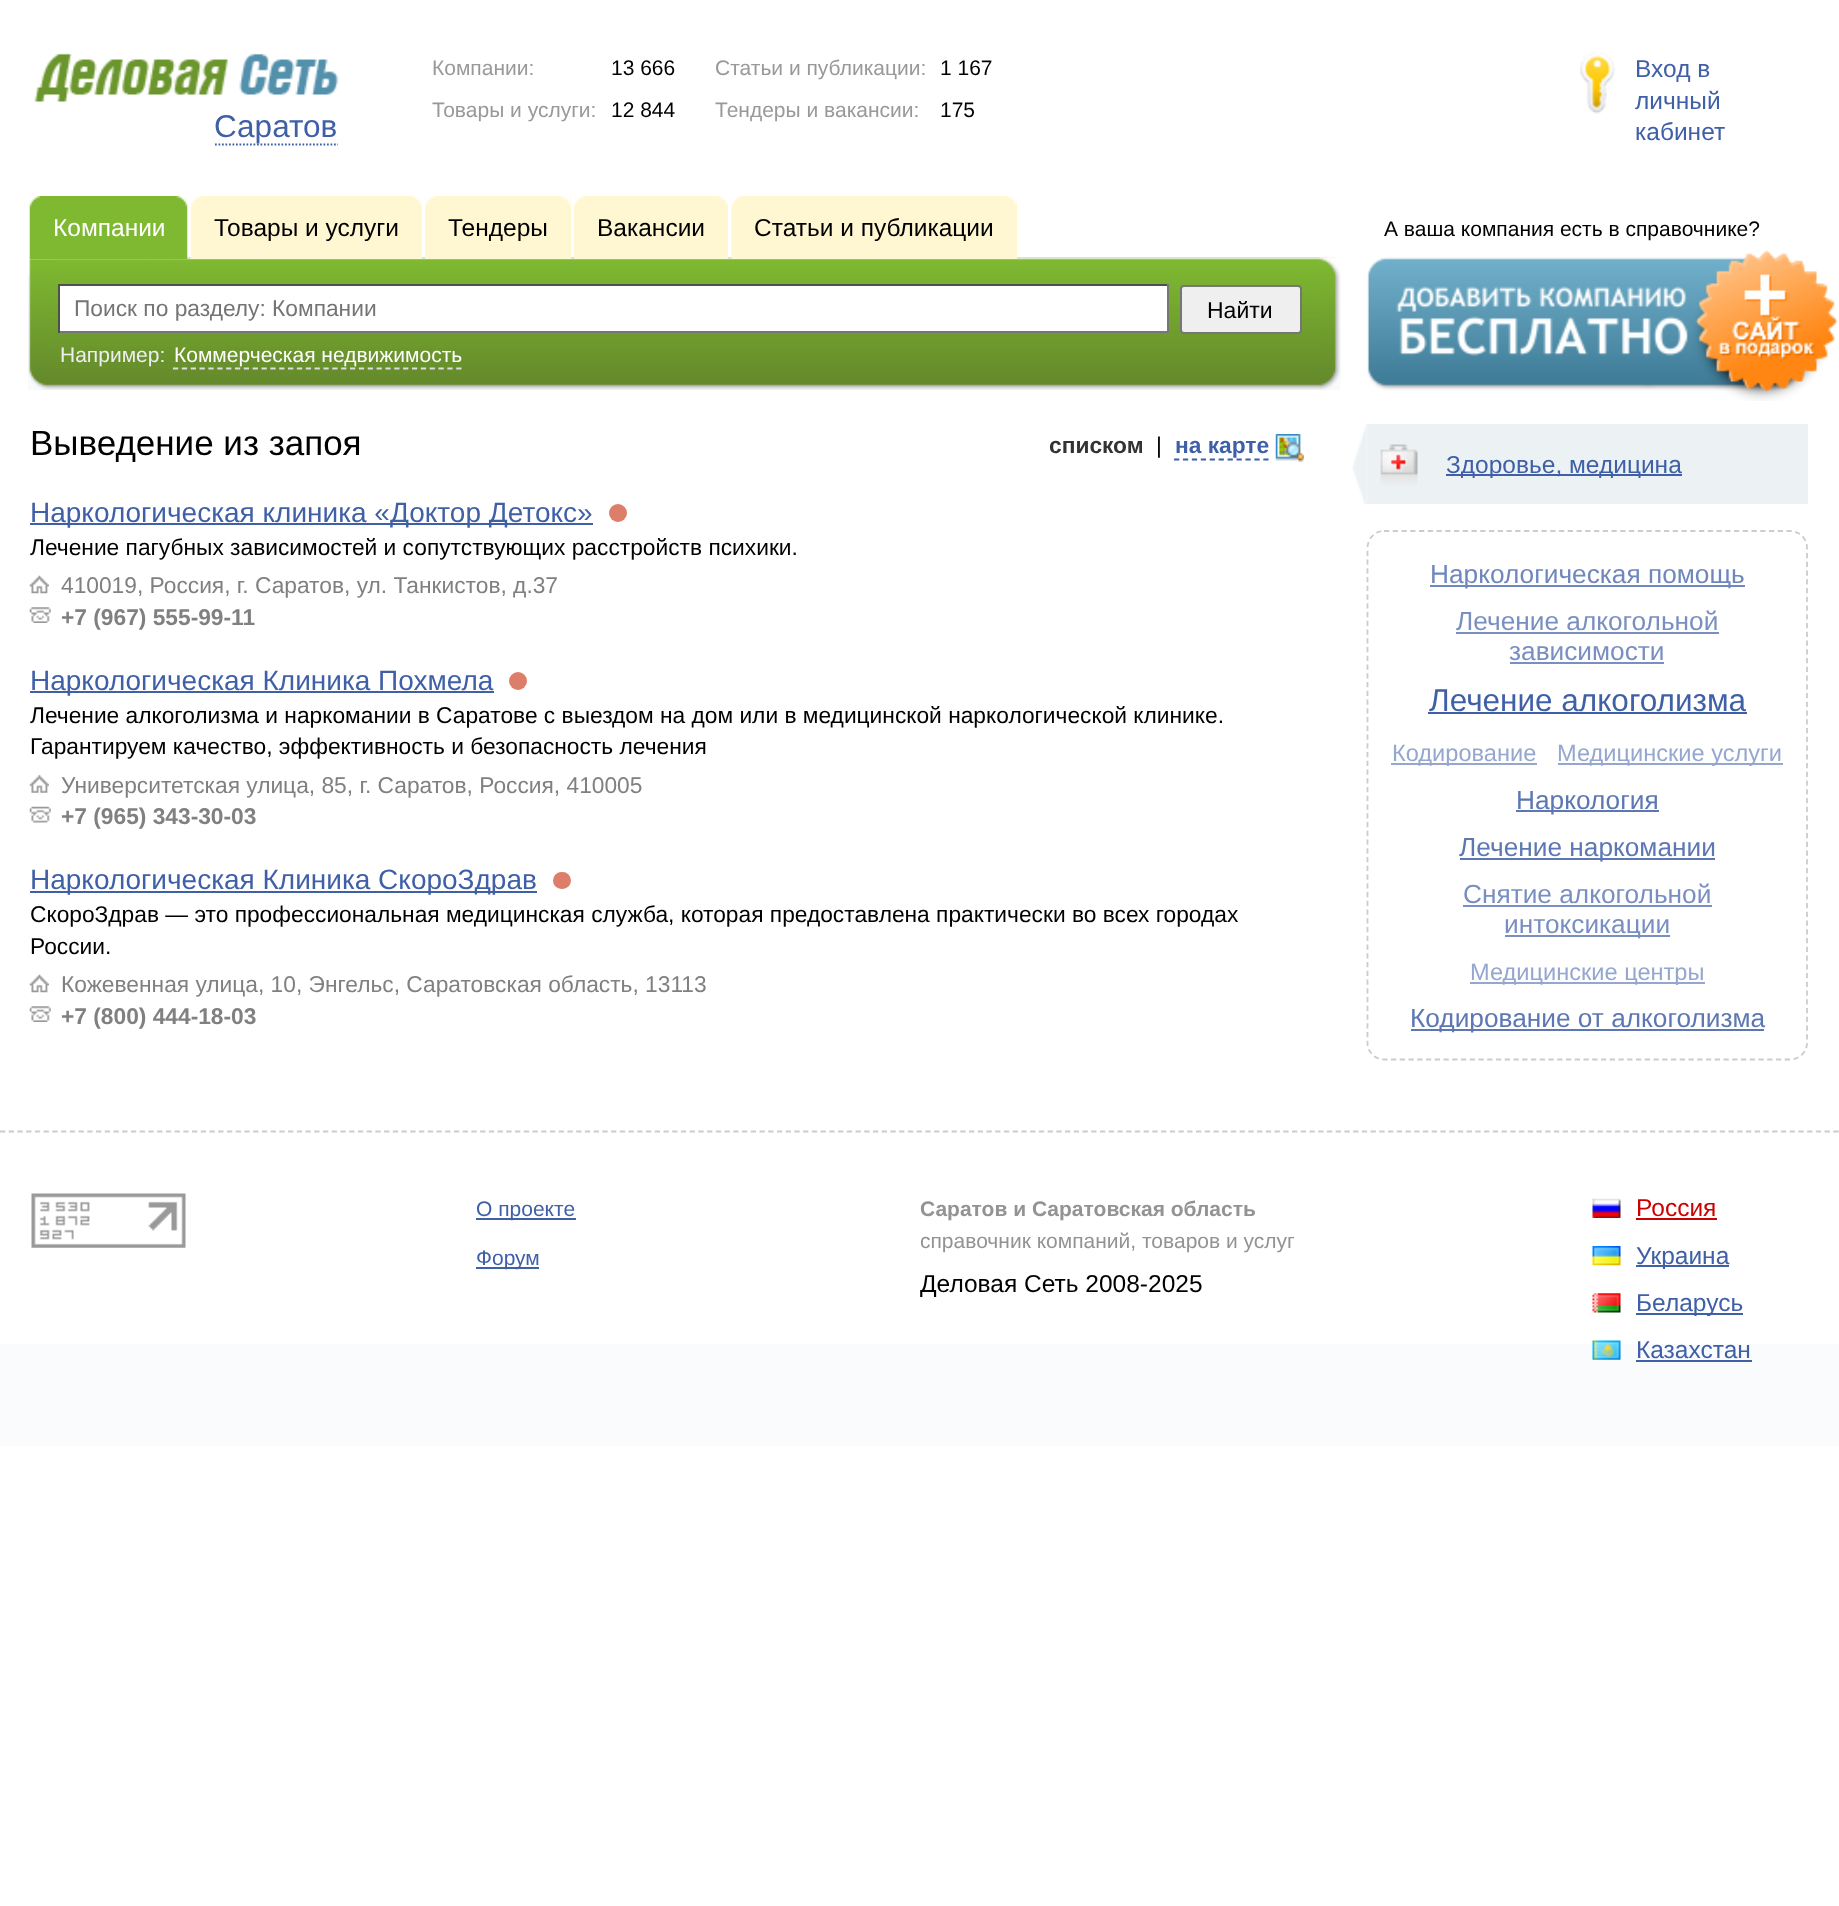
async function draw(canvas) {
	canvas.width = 1839;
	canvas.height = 1906;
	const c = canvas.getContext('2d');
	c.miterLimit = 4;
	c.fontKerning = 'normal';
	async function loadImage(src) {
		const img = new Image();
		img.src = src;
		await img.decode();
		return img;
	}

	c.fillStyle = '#fff';
	c.fillRect(0, 0, 1839, 1906);
	c.drawImage(await loadImage('img1.png'), 34, 53, 305, 49);
	c.beginPath();
	c.moveTo(215, 144.5);
	c.lineTo(338, 144.5);
	c.strokeStyle = '#3f5fa6';
	c.lineWidth = 1.8;
	c.setLineDash([1.75, 1.75]);
	c.stroke();
	c.font = '31.5px Liberation Sans';
	c.fillStyle = '#3f5fa7';
	c.fillText('Саратов', 214, 137);
	c.font = '21px Liberation Sans';
	c.fillStyle = '#999';
	c.fillText('Компании:', 432, 75);
	c.fillStyle = '#000';
	c.fillText('13 666', 611, 75);
	c.fillStyle = '#999';
	c.fillText('Товары и услуги:', 432, 117);
	c.fillStyle = '#000';
	c.fillText('12 844', 611, 117);
	c.fillStyle = '#999';
	c.fillText('Статьи и публикации:', 715, 75);
	c.fillStyle = '#000';
	c.fillText('1 167', 940, 75);
	c.fillStyle = '#999';
	c.fillText('Тендеры и вакансии:', 715, 117);
	c.fillStyle = '#000';
	c.fillText('175', 940, 117);
	c.drawImage(await loadImage('img2.png'), 1580, 52, 35, 62);
	c.font = '24.5px Liberation Sans';
	c.fillStyle = '#3f5fa7';
	for (const [text, x, y] of [
		['Вход в', 1635, 77],
		['личный', 1635, 109],
		['кабинет', 1635, 140],
	]) {
		c.fillText(text, x, y);
	}
	c.drawImage(await loadImage('img13.png'), 29, 257, 1307, 133);
	c.drawImage(await loadImage('img14.png'), 28, 257, 21, 134);
	c.fillStyle = '#7eb931';
	c.fillRect(40, 196, 137, 63);
	c.drawImage(await loadImage('img3.png'), 176, 196, 12, 63);
	c.drawImage(await loadImage('img4.png'), 29, 196, 12, 63);
	c.fillStyle = '#fff';
	c.fillText('Компании', 53, 236);
	c.fillStyle = '#fff7d1';
	c.fillRect(201, 196, 221, 63);
	c.drawImage(await loadImage('img5.png'), 411, 196, 11, 10);
	c.drawImage(await loadImage('img6.png'), 190, 196, 11, 63);
	c.fillStyle = '#000';
	c.fillText('Товары и услуги', 214, 236);
	c.fillStyle = '#fff7d1';
	c.fillRect(425, 196, 146, 63);
	c.drawImage(await loadImage('img7.png'), 560, 196, 11, 10);
	c.drawImage(await loadImage('img8.png'), 425, 196, 11, 10);
	c.fillStyle = '#000';
	c.fillText('Тендеры', 448, 236);
	c.fillStyle = '#fff7d1';
	c.fillRect(574, 196, 154, 63);
	c.drawImage(await loadImage('img9.png'), 717, 196, 11, 11);
	c.drawImage(await loadImage('img10.png'), 574, 196, 11, 11);
	c.fillStyle = '#000';
	c.fillText('Вакансии', 597, 236);
	c.fillStyle = '#fff7d1';
	c.fillRect(742, 196, 275, 63);
	c.drawImage(await loadImage('img11.png'), 1006, 196, 11, 10);
	c.drawImage(await loadImage('img12.png'), 731, 196, 11, 63);
	c.fillStyle = '#000';
	c.fillText('Статьи и публикации', 754, 236);
	for (const [x, y, w, h, color] of [
		[60, 286, 1107, 45, '#fff'],
		[58, 284, 1111, 2, '#4f4f4f'],
		[1167, 284, 2, 49, '#767676'],
		[58, 331, 1111, 2, '#767676'],
		[58, 284, 2, 49, '#4f4f4f'],
	]) {
		c.fillStyle = color;
		c.fillRect(x, y, w, h);
	}
	c.font = '22.75px Liberation Sans';
	c.fillStyle = '#757575';
	c.fillText('Поиск по разделу: Компании', 74, 316);
	c.fillStyle = '#efefef';
	c.beginPath();
	c.roundRect(1181, 286, 120, 47, 3);
	c.fill();
	c.strokeStyle = '#767676';
	c.lineWidth = 2;
	c.setLineDash([]);
	c.stroke();
	c.font = '23px Liberation Sans';
	c.fillStyle = '#000';
	c.fillText('Найти', 1207, 318);
	c.drawImage(await loadImage('img15.png'), 1319, 257, 22, 134);
	c.font = '21px Liberation Sans';
	c.fillStyle = '#eee';
	c.fillText('Например:', 60, 362);
	c.fillStyle = '#fff';
	c.fillText('Коммерческая недвижимость', 174, 362);
	c.beginPath();
	c.moveTo(173, 368.5);
	c.lineTo(462, 368.5);
	c.strokeStyle = '#ddd';
	c.lineWidth = 1.8;
	c.setLineDash([5.25, 3.6]);
	c.stroke();
	c.fillStyle = '#000';
	c.fillText('А ваша компания есть в справочнике?', 1384, 236);
	c.drawImage(await loadImage('img16.png'), 1367, 250, 471, 151);
	c.font = '35px Liberation Sans';
	c.fillText('Выведение из запоя', 30, 455);
	c.font = 'bold 22.75px Liberation Sans';
	c.fillStyle = '#333';
	c.fillText('списком', 1049, 453);
	c.font = '22.75px Liberation Sans';
	c.fillStyle = '#000';
	c.fillText('|', 1156, 453);
	c.font = 'bold 22.75px Liberation Sans';
	c.fillStyle = '#3f5fa7';
	c.fillText('на карте', 1175, 453);
	c.beginPath();
	c.moveTo(1174, 459.5);
	c.lineTo(1269, 459.5);
	c.strokeStyle = '#3f5fa7';
	c.setLineDash([5.25, 3.68]);
	c.stroke();
	c.drawImage(await loadImage('img17.png'), 1275, 434, 29, 28);
	c.fillStyle = '#3f5fa6';
	c.fillRect(30, 523, 563, 2);
	c.font = '28px Liberation Sans';
	c.fillStyle = '#3f5fa7';
	c.fillText('Наркологическая клиника «Доктор Детокс»', 30, 522);
	c.fillStyle = '#dd7e6b';
	c.beginPath();
	c.arc(618, 513, 9, 0, 2 * Math.PI);
	c.fill();
	c.font = '22.75px Liberation Sans';
	c.fillStyle = '#000';
	c.fillText('Лечение пагубных зависимостей и сопутствующих расстройств психики.', 30, 555);
	c.drawImage(await loadImage('img18.png'), 29, 575, 20, 19);
	c.fillStyle = '#808080';
	c.fillText('410019, Россия, г. Саратов, ул. Танкистов, д.37', 61, 593);
	c.drawImage(await loadImage('img19.png'), 29, 607, 22, 16);
	c.font = 'bold 22.75px Liberation Sans';
	c.fillText('+7 (967) 555-99-11', 61, 625);
	c.fillStyle = '#3f5fa6';
	c.fillRect(30, 691, 464, 2);
	c.font = '28px Liberation Sans';
	c.fillStyle = '#3f5fa7';
	c.fillText('Наркологическая Клиника Похмела', 30, 690);
	c.fillStyle = '#dd7e6b';
	c.beginPath();
	c.arc(518, 681, 9, 0, 2 * Math.PI);
	c.fill();
	c.font = '22.75px Liberation Sans';
	c.fillStyle = '#000';
	c.fillText('Лечение алкоголизма и наркомании в Саратове с выездом на дом или в медицинской наркологической клинике.', 30, 723);
	c.fillText('Гарантируем качество, эффективность и безопасность лечения', 30, 754);
	c.drawImage(await loadImage('img20.png'), 29, 775, 20, 18);
	c.fillStyle = '#808080';
	c.fillText('Университетская улица, 85, г. Саратов, Россия, 410005', 61, 793);
	c.drawImage(await loadImage('img21.png'), 29, 806, 22, 17);
	c.font = 'bold 22.75px Liberation Sans';
	c.fillText('+7 (965) 343-30-03', 61, 824);
	c.fillStyle = '#3f5fa6';
	c.fillRect(30, 891, 507, 2);
	c.font = '28px Liberation Sans';
	c.fillStyle = '#3f5fa7';
	c.fillText('Наркологическая Клиника СкороЗдрав', 30, 889);
	c.fillStyle = '#dd7e6b';
	c.beginPath();
	c.roundRect(553, 872, 18, 17, 8.5);
	c.fill();
	c.font = '22.75px Liberation Sans';
	c.fillStyle = '#000';
	c.fillText('СкороЗдрав — это профессиональная медицинская служба, которая предоставлена практически во всех городах', 30, 922);
	c.fillText('России.', 30, 954);
	c.drawImage(await loadImage('img18.png'), 29, 974, 20, 19);
	c.fillStyle = '#808080';
	c.fillText('Кожевенная улица, 10, Энгельс, Саратовская область, 13113', 61, 992);
	c.drawImage(await loadImage('img19.png'), 29, 1006, 22, 16);
	c.font = 'bold 22.75px Liberation Sans';
	c.fillText('+7 (800) 444-18-03', 61, 1024);
	c.fillStyle = '#ecf2f4';
	c.fillRect(1367, 424, 441, 80);
	c.drawImage(await loadImage('img22.png'), 1352, 424, 15, 80);
	c.drawImage(await loadImage('img23.png'), 1380, 444, 38, 42);
	c.fillStyle = '#3f5fa6';
	c.fillRect(1446, 474, 236, 2);
	c.font = '24.5px Liberation Sans';
	c.fillStyle = '#3f5fa7';
	c.fillText('Здоровье, медицина', 1446, 473);
	c.beginPath();
	c.moveTo(1384, 531);
	c.lineTo(1790, 531);
	c.bezierCurveTo(1799.5, 531, 1807, 538.5, 1807, 548);
	c.lineTo(1807, 1043);
	c.bezierCurveTo(1807, 1052, 1799.5, 1059.5, 1790, 1059.5);
	c.lineTo(1384, 1059.5);
	c.bezierCurveTo(1375, 1059.5, 1367.5, 1052, 1367.5, 1043);
	c.lineTo(1367.5, 548);
	c.bezierCurveTo(1367.5, 538.5, 1375, 531, 1384, 531);
	c.closePath();
	c.strokeStyle = '#ccc';
	c.setLineDash([5.25, 3.5]);
	c.stroke();
	c.fillStyle = '#6f87bc';
	c.fillRect(1430, 585, 315, 2);
	c.font = '26.25px Liberation Sans';
	c.fillText('Наркологическая помощь', 1430, 583);
	c.fillStyle = '#798fc1';
	c.fillText('Лечение алкогольной', 1456, 630);
	c.fillRect(1456, 632, 263, 2);
	c.fillText('зависимости', 1509, 660);
	c.fillRect(1510, 662, 154, 2);
	c.font = '31.5px Liberation Sans';
	c.fillStyle = '#3f5fa7';
	c.fillText('Лечение алкоголизма', 1429, 711);
	c.fillStyle = '#3f5fa6';
	c.fillRect(1428, 712, 319, 2);
	c.fillStyle = '#95a7ce';
	c.fillRect(1391, 763, 146, 2);
	c.font = '23.6px Liberation Sans';
	c.fillText('Кодирование', 1392, 761);
	c.fillRect(1558, 763, 225, 2);
	c.fillText('Медицинские услуги', 1557, 761);
	c.fillStyle = '#5c77b3';
	c.fillRect(1516, 810, 143, 2);
	c.font = '26.25px Liberation Sans';
	c.fillText('Наркология', 1516, 809);
	c.fillRect(1460, 858, 255, 2);
	c.fillText('Лечение наркомании', 1459, 856);
	c.fillStyle = '#798fc1';
	c.fillText('Снятие алкогольной', 1463, 903);
	c.fillRect(1463, 905, 249, 2);
	c.fillRect(1505, 935, 165, 2);
	c.fillText('интоксикации', 1504, 933);
	c.fillStyle = '#95a7ce';
	c.fillRect(1470, 982, 235, 2);
	c.font = '23.6px Liberation Sans';
	c.fillText('Медицинские центры', 1470, 980);
	c.fillStyle = '#5c77b3';
	c.fillRect(1411, 1029, 353, 2);
	c.font = '26.25px Liberation Sans';
	c.fillText('Кодирование от алкоголизма', 1410, 1027);
	c.fillStyle = '#f9fbfc';
	c.fillRect(0, 1344, 1839, 102);
	c.beginPath();
	c.moveTo(0, 1131.5);
	c.lineTo(1839, 1131.5);
	c.setLineDash([5.25, 3.48]);
	c.stroke();
	c.drawImage(await loadImage('img24.png'), 31, 1193, 155, 55);
	c.fillStyle = '#3f5fa6';
	c.fillRect(476, 1218, 100, 2);
	c.font = '21px Liberation Sans';
	c.fillStyle = '#3f5fa7';
	c.fillText('О проекте', 476, 1216);
	c.fillStyle = '#3f5fa6';
	c.fillRect(476, 1267, 63, 2);
	c.fillStyle = '#3f5fa7';
	c.fillText('Форум', 476, 1265);
	c.font = 'bold 21px Liberation Sans';
	c.fillStyle = '#939393';
	c.fillText('Саратов и Саратовская область', 920, 1216);
	c.font = '21px Liberation Sans';
	c.fillText('справочник компаний, товаров и услуг', 920, 1248);
	c.font = '24.5px Liberation Sans';
	c.fillStyle = '#000';
	c.fillText('Деловая Сеть 2008-2025', 920, 1292);
	c.drawImage(await loadImage('img25.png'), 1592, 1198, 29, 20);
	c.fillStyle = '#c00';
	c.fillText('Россия', 1636, 1216);
	c.fillRect(1636, 1218, 81, 2);
	c.drawImage(await loadImage('img26.png'), 1592, 1246, 29, 20);
	c.fillStyle = '#3f5fa6';
	c.fillRect(1636, 1265, 93, 2);
	c.fillStyle = '#3f5fa7';
	c.fillText('Украина', 1636, 1264);
	c.drawImage(await loadImage('img27.png'), 1592, 1293, 29, 20);
	c.fillStyle = '#3f5fa6';
	c.fillRect(1636, 1313, 107, 2);
	c.fillStyle = '#3f5fa7';
	c.fillText('Беларусь', 1636, 1311);
	c.drawImage(await loadImage('img28.png'), 1592, 1340, 29, 20);
	c.fillText('Казахстан', 1636, 1358);
	c.fillStyle = '#3f5fa6';
	c.fillRect(1636, 1360, 116, 2);
}

draw(document.querySelector('canvas'));
